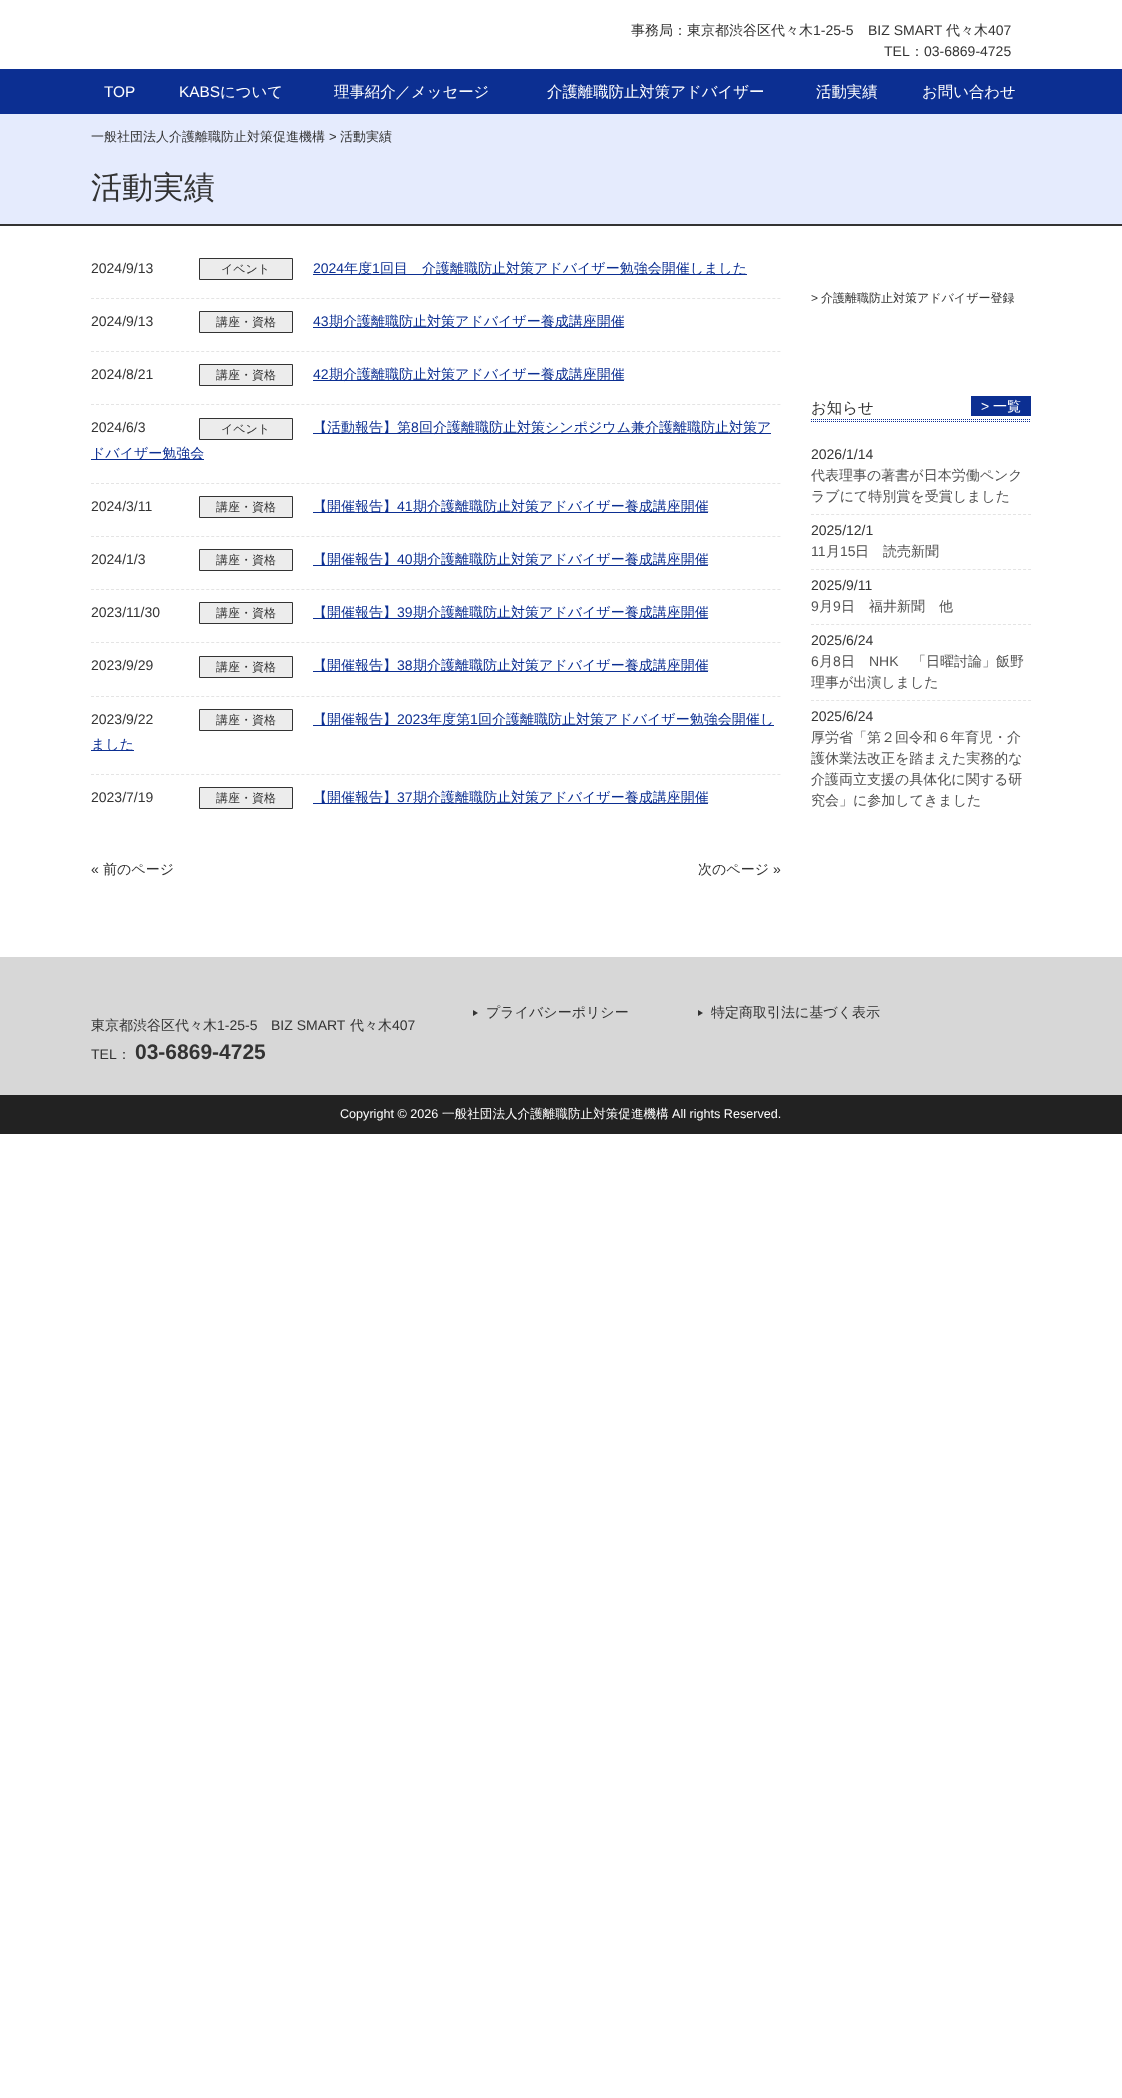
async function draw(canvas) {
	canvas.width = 1122;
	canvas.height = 2098;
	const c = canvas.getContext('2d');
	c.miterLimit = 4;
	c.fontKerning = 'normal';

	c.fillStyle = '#fff';
	c.fillRect(0, 0, 1122, 2098);
	c.font = '500 14px WenQuanYi Zen Hei';
	c.fillStyle = '#333';
	c.fillText('事務局：東京都渋谷区代々木', 631, 35);
	c.font = '14px Liberation Sans';
	c.fillText('1-25-5', 813, 35);
	c.fillText('BIZ SMART', 868, 35);
	c.font = '500 14px WenQuanYi Zen Hei';
	c.fillText('代々木', 946, 35);
	c.font = '14px Liberation Sans';
	c.fillText('407', 988, 35);
	c.fillText('TEL', 884, 56);
	c.font = '500 14px WenQuanYi Zen Hei';
	c.fillText('：', 910, 56);
	c.font = '14px Liberation Sans';
	c.fillText('03-6869-4725', 924, 56);
	c.fillStyle = '#0c2f92';
	c.fillRect(0, 69, 1122, 45);
	c.font = '15.4px Liberation Sans';
	c.fillStyle = '#fff';
	c.fillText('TOP', 104, 97);
	c.fillText('KABS', 179, 97);
	c.font = '500 15.4px WenQuanYi Zen Hei';
	for (const [text, x, y] of [
		['について', 220, 97],
		['理事紹介／メッセージ', 334, 97],
		['介護離職防止対策アドバイザー', 547, 97],
		['活動実績', 816, 97],
		['お問い合わせ', 922, 97],
	]) {
		c.fillText(text, x, y);
	}
	c.fillStyle = '#e5ebfd';
	c.fillRect(0, 114, 1122, 110);
	c.fillStyle = '#333';
	c.fillRect(0, 224, 1122, 2);
	c.font = '500 13px WenQuanYi Zen Hei';
	c.fillText('一般社団法人介護離職防止対策促進機構', 91, 141);
	c.font = '13px Liberation Sans';
	c.fillText('>', 329, 141);
	c.font = '500 13px WenQuanYi Zen Hei';
	c.fillText('活動実績', 340, 141);
	c.font = '500 31px WenQuanYi Zen Hei';
	c.fillText('活動実績', 91, 198);
	c.beginPath();
	c.moveTo(91, 298.5);
	c.lineTo(781, 298.5);
	c.strokeStyle = '#e4e4e4';
	c.setLineDash([3, 2.01]);
	c.stroke();
	c.font = '14px Liberation Sans';
	c.fillText('2024/9/13', 91, 273);
	c.fillStyle = '#ececec';
	c.beginPath();
	c.rect(199.5, 258.5, 93, 21);
	c.fill();
	c.strokeStyle = '#333';
	c.setLineDash([]);
	c.stroke();
	c.font = '500 12px WenQuanYi Zen Hei';
	c.fillStyle = '#333';
	c.fillText('イベント', 221, 273);
	c.font = '14px Liberation Sans';
	c.fillStyle = '#0c2f92';
	c.fillText('2024', 313, 273);
	c.fillRect(313, 274, 434, 1);
	c.font = '500 14px WenQuanYi Zen Hei';
	c.fillText('年度', 344, 273);
	c.font = '14px Liberation Sans';
	c.fillText('1', 372, 273);
	c.font = '500 14px WenQuanYi Zen Hei';
	c.fillText('回目　介護離職防止対策アドバイザー勉強会開催しました', 380, 273);
	c.beginPath();
	c.moveTo(91, 351.5);
	c.lineTo(781, 351.5);
	c.strokeStyle = '#e4e4e4';
	c.setLineDash([3, 2.01]);
	c.stroke();
	c.font = '14px Liberation Sans';
	c.fillStyle = '#333';
	c.fillText('2024/9/13', 91, 326);
	c.fillStyle = '#ececec';
	c.beginPath();
	c.rect(199.5, 311.5, 93, 21);
	c.fill();
	c.strokeStyle = '#333';
	c.setLineDash([]);
	c.stroke();
	c.font = '500 12px WenQuanYi Zen Hei';
	c.fillStyle = '#333';
	c.fillText('講座・資格', 216, 326);
	c.font = '14px Liberation Sans';
	c.fillStyle = '#0c2f92';
	c.fillText('43', 313, 326);
	c.fillRect(313, 327, 311, 1);
	c.font = '500 14px WenQuanYi Zen Hei';
	c.fillText('期介護離職防止対策アドバイザー養成講座開催', 329, 326);
	c.beginPath();
	c.moveTo(91, 404.5);
	c.lineTo(781, 404.5);
	c.strokeStyle = '#e4e4e4';
	c.setLineDash([3, 2.01]);
	c.stroke();
	c.font = '14px Liberation Sans';
	c.fillStyle = '#333';
	c.fillText('2024/8/21', 91, 379);
	c.fillStyle = '#ececec';
	c.beginPath();
	c.rect(199.5, 364.5, 93, 21);
	c.fill();
	c.strokeStyle = '#333';
	c.setLineDash([]);
	c.stroke();
	c.font = '500 12px WenQuanYi Zen Hei';
	c.fillStyle = '#333';
	c.fillText('講座・資格', 216, 379);
	c.font = '14px Liberation Sans';
	c.fillStyle = '#0c2f92';
	c.fillText('42', 313, 379);
	c.fillRect(313, 380, 311, 1);
	c.font = '500 14px WenQuanYi Zen Hei';
	c.fillText('期介護離職防止対策アドバイザー養成講座開催', 329, 379);
	c.beginPath();
	c.moveTo(91, 483.5);
	c.lineTo(781, 483.5);
	c.strokeStyle = '#e4e4e4';
	c.setLineDash([3, 2.01]);
	c.stroke();
	c.font = '14px Liberation Sans';
	c.fillStyle = '#333';
	c.fillText('2024/6/3', 91, 432);
	c.fillStyle = '#ececec';
	c.beginPath();
	c.rect(199.5, 418.5, 93, 21);
	c.fill();
	c.strokeStyle = '#333';
	c.setLineDash([]);
	c.stroke();
	c.font = '500 12px WenQuanYi Zen Hei';
	c.fillStyle = '#333';
	c.fillText('イベント', 221, 433);
	c.fillStyle = '#0c2f92';
	c.fillRect(313, 433, 458, 1);
	c.font = '500 14px WenQuanYi Zen Hei';
	c.fillText('【活動報告】第', 313, 432);
	c.font = '14px Liberation Sans';
	c.fillText('8', 411, 432);
	c.font = '500 14px WenQuanYi Zen Hei';
	c.fillText('回介護離職防止対策シンポジウム兼介護離職防止対策ア', 419, 432);
	c.fillRect(91, 459, 113, 1);
	c.fillText('ドバイザー勉強会', 91, 458);
	c.beginPath();
	c.moveTo(91, 536.5);
	c.lineTo(781, 536.5);
	c.strokeStyle = '#e4e4e4';
	c.setLineDash([3, 2.01]);
	c.stroke();
	c.font = '14px Liberation Sans';
	c.fillStyle = '#333';
	c.fillText('2024/3/11', 91, 511);
	c.fillStyle = '#ececec';
	c.beginPath();
	c.rect(199.5, 496.5, 93, 21);
	c.fill();
	c.strokeStyle = '#333';
	c.setLineDash([]);
	c.stroke();
	c.font = '500 12px WenQuanYi Zen Hei';
	c.fillStyle = '#333';
	c.fillText('講座・資格', 216, 511);
	c.fillStyle = '#0c2f92';
	c.fillRect(313, 512, 395, 1);
	c.font = '500 14px WenQuanYi Zen Hei';
	c.fillText('【開催報告】', 313, 511);
	c.font = '14px Liberation Sans';
	c.fillText('41', 397, 511);
	c.font = '500 14px WenQuanYi Zen Hei';
	c.fillText('期介護離職防止対策アドバイザー養成講座開催', 413, 511);
	c.beginPath();
	c.moveTo(91, 589.5);
	c.lineTo(781, 589.5);
	c.strokeStyle = '#e4e4e4';
	c.setLineDash([3, 2.01]);
	c.stroke();
	c.font = '14px Liberation Sans';
	c.fillStyle = '#333';
	c.fillText('2024/1/3', 91, 564);
	c.fillStyle = '#ececec';
	c.beginPath();
	c.rect(199.5, 549.5, 93, 21);
	c.fill();
	c.strokeStyle = '#333';
	c.setLineDash([]);
	c.stroke();
	c.font = '500 12px WenQuanYi Zen Hei';
	c.fillStyle = '#333';
	c.fillText('講座・資格', 216, 564);
	c.fillStyle = '#0c2f92';
	c.fillRect(313, 565, 395, 1);
	c.font = '500 14px WenQuanYi Zen Hei';
	c.fillText('【開催報告】', 313, 564);
	c.font = '14px Liberation Sans';
	c.fillText('40', 397, 564);
	c.font = '500 14px WenQuanYi Zen Hei';
	c.fillText('期介護離職防止対策アドバイザー養成講座開催', 413, 564);
	c.beginPath();
	c.moveTo(91, 642.5);
	c.lineTo(781, 642.5);
	c.strokeStyle = '#e4e4e4';
	c.setLineDash([3, 2.01]);
	c.stroke();
	c.font = '14px Liberation Sans';
	c.fillStyle = '#333';
	c.fillText('2023/11/30', 91, 617);
	c.fillStyle = '#ececec';
	c.beginPath();
	c.rect(199.5, 602.5, 93, 21);
	c.fill();
	c.strokeStyle = '#333';
	c.setLineDash([]);
	c.stroke();
	c.font = '500 12px WenQuanYi Zen Hei';
	c.fillStyle = '#333';
	c.fillText('講座・資格', 216, 617);
	c.fillStyle = '#0c2f92';
	c.fillRect(313, 618, 395, 1);
	c.font = '500 14px WenQuanYi Zen Hei';
	c.fillText('【開催報告】', 313, 617);
	c.font = '14px Liberation Sans';
	c.fillText('39', 397, 617);
	c.font = '500 14px WenQuanYi Zen Hei';
	c.fillText('期介護離職防止対策アドバイザー養成講座開催', 413, 617);
	c.beginPath();
	c.moveTo(91, 696.5);
	c.lineTo(781, 696.5);
	c.strokeStyle = '#e4e4e4';
	c.setLineDash([3, 2.01]);
	c.stroke();
	c.font = '14px Liberation Sans';
	c.fillStyle = '#333';
	c.fillText('2023/9/29', 91, 670);
	c.fillStyle = '#ececec';
	c.beginPath();
	c.rect(199.5, 656.5, 93, 21);
	c.fill();
	c.strokeStyle = '#333';
	c.setLineDash([]);
	c.stroke();
	c.font = '500 12px WenQuanYi Zen Hei';
	c.fillStyle = '#333';
	c.fillText('講座・資格', 216, 671);
	c.fillStyle = '#0c2f92';
	c.fillRect(313, 671, 395, 1);
	c.font = '500 14px WenQuanYi Zen Hei';
	c.fillText('【開催報告】', 313, 670);
	c.font = '14px Liberation Sans';
	c.fillText('38', 397, 670);
	c.font = '500 14px WenQuanYi Zen Hei';
	c.fillText('期介護離職防止対策アドバイザー養成講座開催', 413, 670);
	c.beginPath();
	c.moveTo(91, 774.5);
	c.lineTo(781, 774.5);
	c.strokeStyle = '#e4e4e4';
	c.setLineDash([3, 2.01]);
	c.stroke();
	c.font = '14px Liberation Sans';
	c.fillStyle = '#333';
	c.fillText('2023/9/22', 91, 724);
	c.fillStyle = '#ececec';
	c.beginPath();
	c.rect(199.5, 709.5, 93, 21);
	c.fill();
	c.strokeStyle = '#333';
	c.setLineDash([]);
	c.stroke();
	c.font = '500 12px WenQuanYi Zen Hei';
	c.fillStyle = '#333';
	c.fillText('講座・資格', 216, 724);
	c.fillStyle = '#0c2f92';
	c.fillRect(313, 725, 461, 1);
	c.font = '500 14px WenQuanYi Zen Hei';
	c.fillText('【開催報告】', 313, 724);
	c.font = '14px Liberation Sans';
	c.fillText('2023', 397, 724);
	c.font = '500 14px WenQuanYi Zen Hei';
	c.fillText('年度第', 428, 724);
	c.font = '14px Liberation Sans';
	c.fillText('1', 470, 724);
	c.font = '500 14px WenQuanYi Zen Hei';
	c.fillText('回介護離職防止対策アドバイザー勉強会開催し', 478, 724);
	c.fillRect(91, 750, 43, 1);
	c.fillText('ました', 91, 749);
	c.font = '14px Liberation Sans';
	c.fillStyle = '#333';
	c.fillText('2023/7/19', 91, 802);
	c.fillStyle = '#ececec';
	c.beginPath();
	c.rect(199.5, 787.5, 93, 21);
	c.fill();
	c.stroke();
	c.font = '500 12px WenQuanYi Zen Hei';
	c.fillStyle = '#333';
	c.fillText('講座・資格', 216, 802);
	c.fillStyle = '#0c2f92';
	c.fillRect(313, 803, 395, 1);
	c.font = '500 14px WenQuanYi Zen Hei';
	c.fillText('【開催報告】', 313, 802);
	c.font = '14px Liberation Sans';
	c.fillText('37', 397, 802);
	c.font = '500 14px WenQuanYi Zen Hei';
	c.fillText('期介護離職防止対策アドバイザー養成講座開催', 413, 802);
	c.font = '14px Liberation Sans';
	c.fillStyle = '#333';
	c.fillText('«', 91, 874);
	c.font = '500 14px WenQuanYi Zen Hei';
	c.fillText('前のページ', 103, 874);
	c.fillText('次のページ', 698, 874);
	c.font = '14px Liberation Sans';
	c.fillText('»', 773, 874);
	c.font = '12px Liberation Sans';
	c.fillText('>', 811, 302);
	c.font = '500 12px WenQuanYi Zen Hei';
	c.fillText('介護離職防止対策アドバイザー登録', 821, 302);
	c.font = '500 15.4px WenQuanYi Zen Hei';
	c.fillText('お知らせ', 811, 413);
	c.fillStyle = '#0c2f92';
	c.fillRect(971, 396, 60, 20);
	c.font = '14px Liberation Sans';
	c.fillStyle = '#fff';
	c.fillText('>', 981, 411);
	c.font = '500 14px WenQuanYi Zen Hei';
	c.fillText('一覧', 993, 411);
	c.beginPath();
	c.moveTo(811, 419.5);
	c.lineTo(1031, 419.5);
	c.strokeStyle = '#0c2f92';
	c.setLineDash([1, 1]);
	c.stroke();
	c.beginPath();
	c.moveTo(811, 421.5);
	c.lineTo(1031, 421.5);
	c.stroke();
	c.beginPath();
	c.moveTo(811, 514.5);
	c.lineTo(1031, 514.5);
	c.strokeStyle = '#e4e4e4';
	c.setLineDash([3, 2.05]);
	c.stroke();
	c.font = '14px Liberation Sans';
	c.fillStyle = '#333';
	c.fillText('2026/1/14', 811, 459);
	c.font = '500 14px WenQuanYi Zen Hei';
	c.fillStyle = '#515151';
	c.fillText('代表理事の著書が日本労働ペンク', 811, 480);
	c.fillText('ラブにて特別賞を受賞しました', 811, 501);
	c.beginPath();
	c.moveTo(811, 569.5);
	c.lineTo(1031, 569.5);
	c.stroke();
	c.font = '14px Liberation Sans';
	c.fillStyle = '#333';
	c.fillText('2025/12/1', 811, 535);
	c.fillStyle = '#515151';
	c.fillText('11', 811, 556);
	c.font = '500 14px WenQuanYi Zen Hei';
	c.fillText('月', 826, 556);
	c.font = '14px Liberation Sans';
	c.fillText('15', 840, 556);
	c.font = '500 14px WenQuanYi Zen Hei';
	c.fillText('日　読売新聞', 855, 556);
	c.beginPath();
	c.moveTo(811, 624.5);
	c.lineTo(1031, 624.5);
	c.stroke();
	c.font = '14px Liberation Sans';
	c.fillStyle = '#333';
	c.fillText('2025/9/11', 811, 590);
	c.fillStyle = '#515151';
	c.fillText('9', 811, 611);
	c.font = '500 14px WenQuanYi Zen Hei';
	c.fillText('月', 819, 611);
	c.font = '14px Liberation Sans';
	c.fillText('9', 833, 611);
	c.font = '500 14px WenQuanYi Zen Hei';
	c.fillText('日　福井新聞　他', 841, 611);
	c.beginPath();
	c.moveTo(811, 700.5);
	c.lineTo(1031, 700.5);
	c.stroke();
	c.font = '14px Liberation Sans';
	c.fillStyle = '#333';
	c.fillText('2025/6/24', 811, 645);
	c.fillStyle = '#515151';
	c.fillText('6', 811, 666);
	c.font = '500 14px WenQuanYi Zen Hei';
	c.fillText('月', 819, 666);
	c.font = '14px Liberation Sans';
	c.fillText('8', 833, 666);
	c.font = '500 14px WenQuanYi Zen Hei';
	c.fillText('日', 841, 666);
	c.font = '14px Liberation Sans';
	c.fillText('NHK', 869, 666);
	c.font = '500 14px WenQuanYi Zen Hei';
	c.fillText('「日曜討論」飯野', 912, 666);
	c.fillText('理事が出演しました', 811, 687);
	c.font = '14px Liberation Sans';
	c.fillStyle = '#333';
	c.fillText('2025/6/24', 811, 721);
	c.font = '500 14px WenQuanYi Zen Hei';
	c.fillStyle = '#515151';
	for (const [text, x, y] of [
		['厚労省「第２回令和６年育児・介', 811, 742],
		['護休業法改正を踏まえた実務的な', 811, 763],
		['介護両立支援の具体化に関する研', 811, 784],
		['究会」に参加してきました', 811, 805],
	]) {
		c.fillText(text, x, y);
	}
	c.fillStyle = '#d7d7d7';
	c.fillRect(0, 957, 1122, 138);
	c.fillStyle = '#333';
	c.beginPath();
	c.moveTo(473, 1016);
	c.lineTo(473, 1010);
	c.lineTo(478, 1013);
	c.closePath();
	c.fill();
	c.fillText('プライバシーポリシー', 486, 1017);
	c.beginPath();
	c.moveTo(698, 1016);
	c.lineTo(698, 1010);
	c.lineTo(703, 1013);
	c.closePath();
	c.fill();
	c.fillText('特定商取引法に基づく表示', 711, 1017);
	c.fillText('東京都渋谷区代々木', 91, 1030);
	c.font = '14px Liberation Sans';
	c.fillText('1-25-5', 217, 1030);
	c.fillText('BIZ SMART', 271, 1030);
	c.font = '500 14px WenQuanYi Zen Hei';
	c.fillText('代々木', 350, 1030);
	c.font = '14px Liberation Sans';
	c.fillText('407', 392, 1030);
	c.fillText('TEL', 91, 1059);
	c.font = '500 14px WenQuanYi Zen Hei';
	c.fillText('：', 117, 1059);
	c.font = 'bold 21px Liberation Sans';
	c.fillText('03-6869-4725', 135, 1059);
	c.fillStyle = '#222';
	c.fillRect(0, 1095, 1122, 39);
	c.font = '12.6px Liberation Sans';
	c.fillStyle = '#fff';
	c.fillText('Copyright © 2026', 340, 1118);
	c.font = '500 12.6px WenQuanYi Zen Hei';
	c.fillText('一般社団法人介護離職防止対策促進機構', 442, 1118);
	c.font = '12.6px Liberation Sans';
	c.fillText('All rights Reserved.', 672, 1118);
}

draw(document.querySelector('canvas'));
